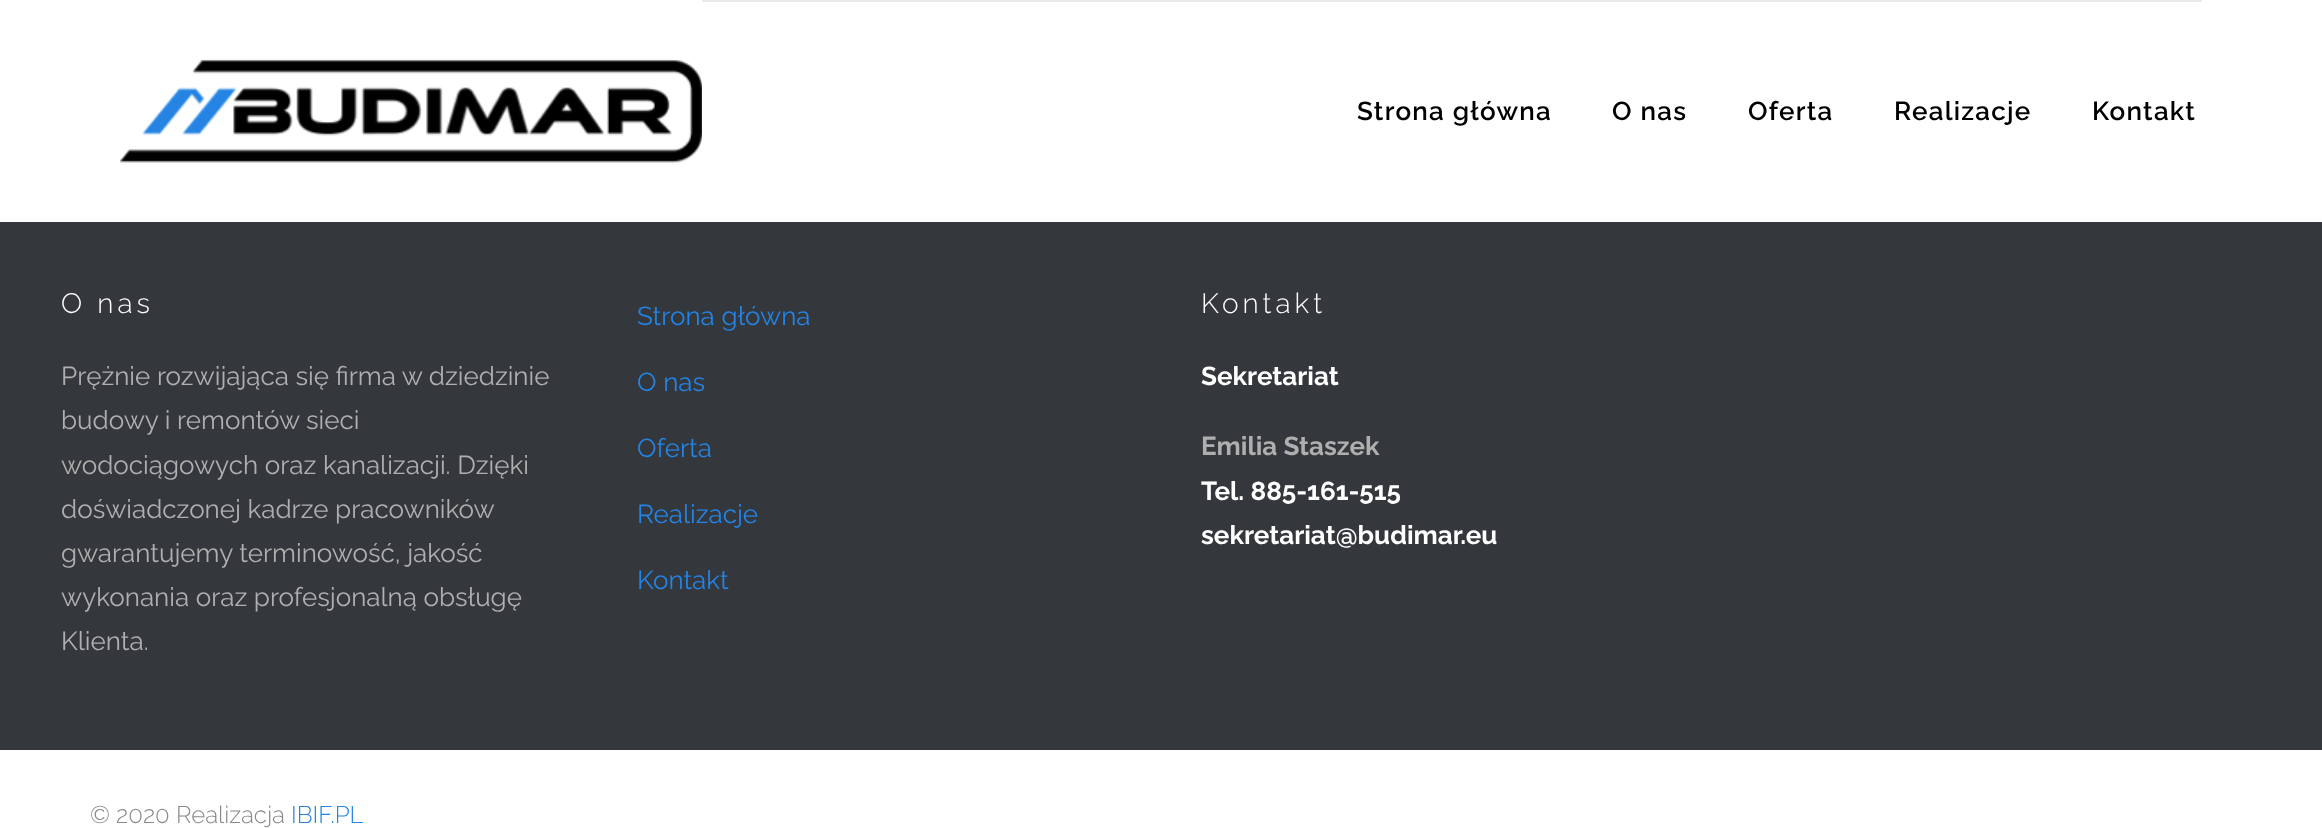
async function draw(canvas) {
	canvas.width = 2322;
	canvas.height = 828;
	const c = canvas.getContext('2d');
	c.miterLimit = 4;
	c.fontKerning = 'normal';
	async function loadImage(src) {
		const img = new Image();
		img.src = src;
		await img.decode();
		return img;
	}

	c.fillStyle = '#34373c';
	c.fillRect(0, 0, 2322, 828);
	c.fillStyle = '#fff';
	c.fillRect(0, 0, 2322, 222);
	c.drawImage(await loadImage('img1.png'), 120, 59, 582, 104);
	c.fillStyle = '#eaeaeb';
	c.fillRect(702, 0, 1500, 2);
	c.letterSpacing = '1.25px';
	c.font = '600 26px Raleway';
	c.fillStyle = '#000';
	for (const [text, x, y] of [
		['Strona główna', 1357, 120],
		['O nas', 1612, 120],
		['Oferta', 1748, 120],
		['Realizacje', 1894, 120],
		['Kontakt', 2092, 120],
	]) {
		c.fillText(text, x, y);
	}
	c.letterSpacing = '4px';
	c.font = '300 28px Raleway';
	c.fillStyle = '#fff';
	c.fillText('O nas', 61, 313);
	c.letterSpacing = '0px';
	c.font = '26px Raleway';
	c.fillStyle = '#afafaf';
	for (const [text, x, y] of [
		['Prężnie rozwijająca się firma w dziedzinie', 61, 385],
		['budowy i remontów sieci', 61, 429],
		['wodociągowych oraz kanalizacji. Dzięki', 61, 474],
		['doświadczonej kadrze pracowników', 61, 518],
		['gwarantujemy terminowość, jakość', 61, 562],
		['wykonania oraz profesjonalną obsługę', 61, 606],
		['Klienta.', 61, 650],
	]) {
		c.fillText(text, x, y);
	}
	c.fillStyle = '#2483e3';
	for (const [text, x, y] of [
		['Strona główna', 637, 325],
		['O nas', 637, 391],
		['Oferta', 637, 457],
		['Realizacje', 637, 523],
		['Kontakt', 637, 589],
	]) {
		c.fillText(text, x, y);
	}
	c.letterSpacing = '4px';
	c.font = '300 28px Raleway';
	c.fillStyle = '#fff';
	c.fillText('Kontakt', 1201, 313);
	c.letterSpacing = '0px';
	c.font = 'bold 26px Raleway';
	c.fillText('Sekretariat', 1201, 385);
	c.fillStyle = '#afafaf';
	c.fillText('Emilia Staszek', 1201, 455);
	c.fillStyle = '#fff';
	c.fillText('Tel. 885-161-515', 1201, 500);
	c.fillText('sekretariat@budimar.eu', 1201, 544);
	c.fillRect(0, 750, 2322, 78);
	c.font = '300 24px Raleway';
	c.fillStyle = '#898989';
	c.fillText('© 2020 Realizacja', 90, 823);
	c.fillStyle = '#2483e3';
	c.fillText('IBIF.PL', 291, 823);
}

draw(document.querySelector('canvas'));
